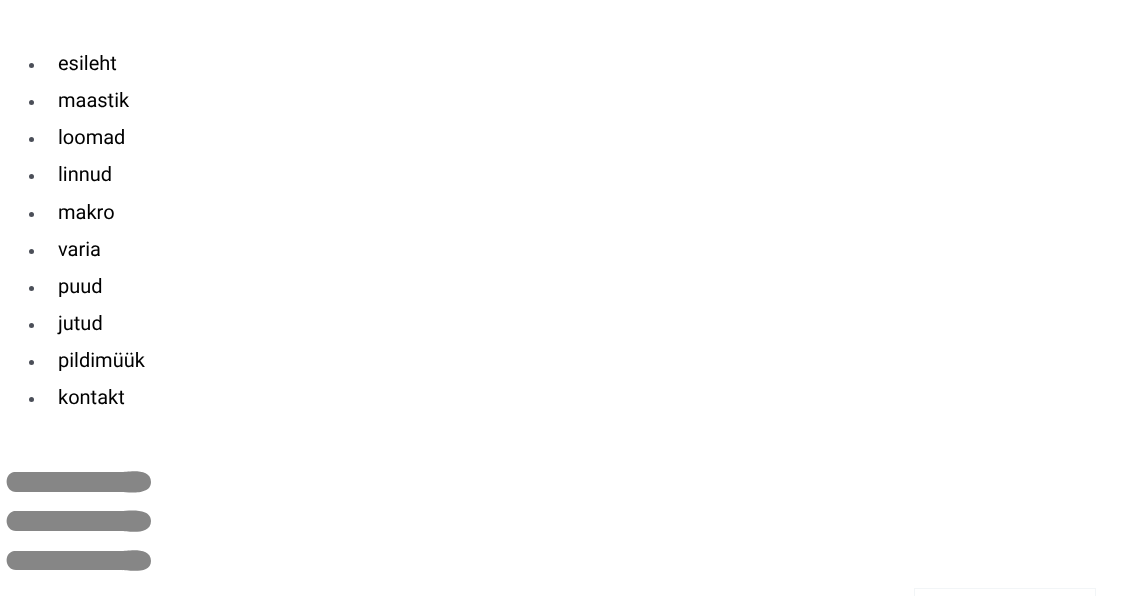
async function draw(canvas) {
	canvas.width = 1125;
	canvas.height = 596;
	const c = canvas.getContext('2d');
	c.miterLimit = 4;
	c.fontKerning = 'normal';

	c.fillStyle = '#fff';
	c.fillRect(0, 0, 1125, 596);
	c.fillStyle = '#4b4f58';
	c.beginPath();
	c.arc(31.5, 65.5, 2.5, 0, 2 * Math.PI);
	c.fill();
	c.font = '20px Roboto';
	c.fillStyle = '#000';
	c.fillText('esileht', 58, 70);
	c.fillStyle = '#4b4f58';
	c.beginPath();
	c.arc(31.5, 102.5, 2.5, 0, 2 * Math.PI);
	c.fill();
	c.fillStyle = '#000';
	c.fillText('maastik', 58, 107);
	c.fillStyle = '#4b4f58';
	c.beginPath();
	c.arc(31.5, 139.5, 2.5, 0, 2 * Math.PI);
	c.fill();
	c.fillStyle = '#000';
	c.fillText('loomad', 58, 144);
	c.fillStyle = '#4b4f58';
	c.beginPath();
	c.arc(31.5, 176.5, 2.5, 0, 2 * Math.PI);
	c.fill();
	c.fillStyle = '#000';
	c.fillText('linnud', 58, 181);
	c.fillStyle = '#4b4f58';
	c.beginPath();
	c.arc(31.5, 214.5, 2.5, 0, 2 * Math.PI);
	c.fill();
	c.fillStyle = '#000';
	c.fillText('makro', 58, 219);
	c.fillStyle = '#4b4f58';
	c.beginPath();
	c.arc(31.5, 251.5, 2.5, 0, 2 * Math.PI);
	c.fill();
	c.fillStyle = '#000';
	c.fillText('varia', 58, 256);
	c.fillStyle = '#4b4f58';
	c.beginPath();
	c.arc(31.5, 288.5, 2.5, 0, 2 * Math.PI);
	c.fill();
	c.fillStyle = '#000';
	c.fillText('puud', 58, 293);
	c.fillStyle = '#4b4f58';
	c.beginPath();
	c.arc(31.5, 325.5, 2.5, 0, 2 * Math.PI);
	c.fill();
	c.fillStyle = '#000';
	c.fillText('jutud', 58, 330);
	c.fillStyle = '#4b4f58';
	c.beginPath();
	c.arc(31.5, 362.5, 2.5, 0, 2 * Math.PI);
	c.fill();
	c.fillStyle = '#000';
	c.fillText('pildimüük', 58, 367);
	c.fillStyle = '#4b4f58';
	c.beginPath();
	c.arc(31.5, 399.5, 2.5, 0, 2 * Math.PI);
	c.fill();
	c.fillStyle = '#000';
	c.fillText('kontakt', 58, 404);
	c.fillStyle = '#868686';
	c.beginPath();
	c.moveTo(16, 492);
	c.lineTo(121, 492);
	c.bezierCurveTo(127, 492, 151, 496, 151, 482);
	c.bezierCurveTo(151, 467, 127, 472, 121, 472);
	c.lineTo(14, 472);
	c.bezierCurveTo(3, 474, 5, 492, 16, 492);
	c.closePath();
	c.moveTo(16, 531);
	c.lineTo(121, 531);
	c.bezierCurveTo(127, 531, 151, 536, 151, 521);
	c.bezierCurveTo(151, 507, 127, 511, 121, 511);
	c.lineTo(14, 511);
	c.bezierCurveTo(3, 514, 5, 531, 16, 531);
	c.closePath();
	c.moveTo(16, 570);
	c.lineTo(121, 570);
	c.bezierCurveTo(127, 570, 151, 575, 151, 561);
	c.bezierCurveTo(151, 546, 127, 551, 121, 551);
	c.lineTo(14, 551);
	c.bezierCurveTo(3, 553, 5, 570, 16, 570);
	c.closePath();
	c.fill();
	c.strokeStyle = '#f2f5f7';
	c.strokeRect(914.5, 588.5, 181, 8);
}

draw(document.querySelector('canvas'));
